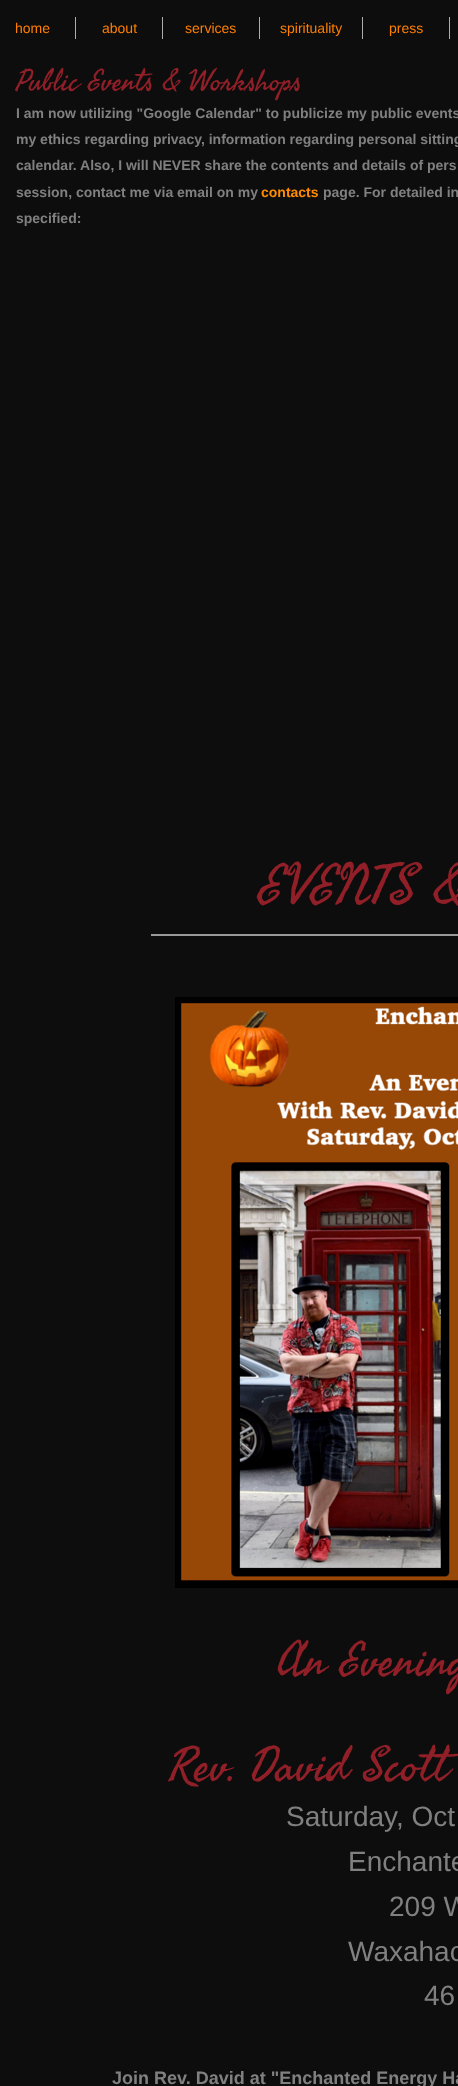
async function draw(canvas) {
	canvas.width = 458;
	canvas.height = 2086;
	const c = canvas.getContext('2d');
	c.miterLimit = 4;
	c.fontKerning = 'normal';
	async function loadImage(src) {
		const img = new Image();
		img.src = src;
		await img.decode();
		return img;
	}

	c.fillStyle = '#0d0d0d';
	c.fillRect(0, 0, 458, 2086);
	c.fillStyle = '#aeaeae';
	c.fillRect(75, 17, 1, 22);
	c.font = '14px Liberation Sans';
	c.fillStyle = '#ff7f00';
	c.fillText('home', 15, 33);
	c.fillStyle = '#aeaeae';
	c.fillRect(162, 17, 1, 22);
	c.fillStyle = '#ff7f00';
	c.fillText('about', 102, 33);
	c.fillStyle = '#aeaeae';
	c.fillRect(259, 17, 1, 22);
	c.fillStyle = '#ff7f00';
	c.fillText('services', 185, 33);
	c.fillStyle = '#aeaeae';
	c.fillRect(362, 17, 1, 22);
	c.fillStyle = '#ff7f00';
	c.fillText('spirituality', 280, 33);
	c.fillStyle = '#aeaeae';
	c.fillRect(449, 17, 1, 22);
	c.fillStyle = '#ff7f00';
	c.fillText('press', 389, 33);
	c.font = '30px Seaweed Script';
	c.fillStyle = '#901f28';
	c.fillText('Public Events & Workshops', 16, 90);
	c.font = 'bold 14px Liberation Sans';
	c.fillStyle = '#808080';
	for (const [text, x, y] of [
		['I am now utilizing "Google Calendar" to publicize my public events', 16, 118],
		['my ethics regarding privacy, information regarding personal sitting', 16, 144],
		['calendar. Also, I will NEVER share the contents and details of pers', 16, 170],
		['session, contact me via email on my', 16, 197],
	]) {
		c.fillText(text, x, y);
	}
	c.fillStyle = '#ff8c00';
	c.fillText('contacts', 261, 197);
	c.fillStyle = '#808080';
	c.fillText('page. For detailed in', 323, 197);
	c.fillText('specified:', 16, 223);
	c.font = '56px Seaweed Script';
	c.fillStyle = '#901f28';
	c.fillText('EVENTS &', 259, 903);
	c.fillStyle = '#999';
	c.fillRect(151, 934, 307, 2);
	c.drawImage(await loadImage('img1.png'), 175, 997, 283, 591);
	c.font = '48px Seaweed Script';
	c.fillStyle = '#901f28';
	c.fillText('An Evening', 277, 1675);
	c.fillText('Rev. David Scott', 169, 1780);
	c.font = '28px Liberation Sans';
	c.fillStyle = '#808080';
	for (const [text, x, y] of [
		['Saturday, Oct', 286, 1826],
		['Enchante', 348, 1871],
		['209 W', 389, 1916],
		['Waxahac', 348, 1961],
		['46', 424, 2005],
	]) {
		c.fillText(text, x, y);
	}
	c.font = 'bold 18px Liberation Sans';
	c.fillText('Join Rev. David at "Enchanted Energy Ha', 112, 2084);
}

draw(document.querySelector('canvas'));
